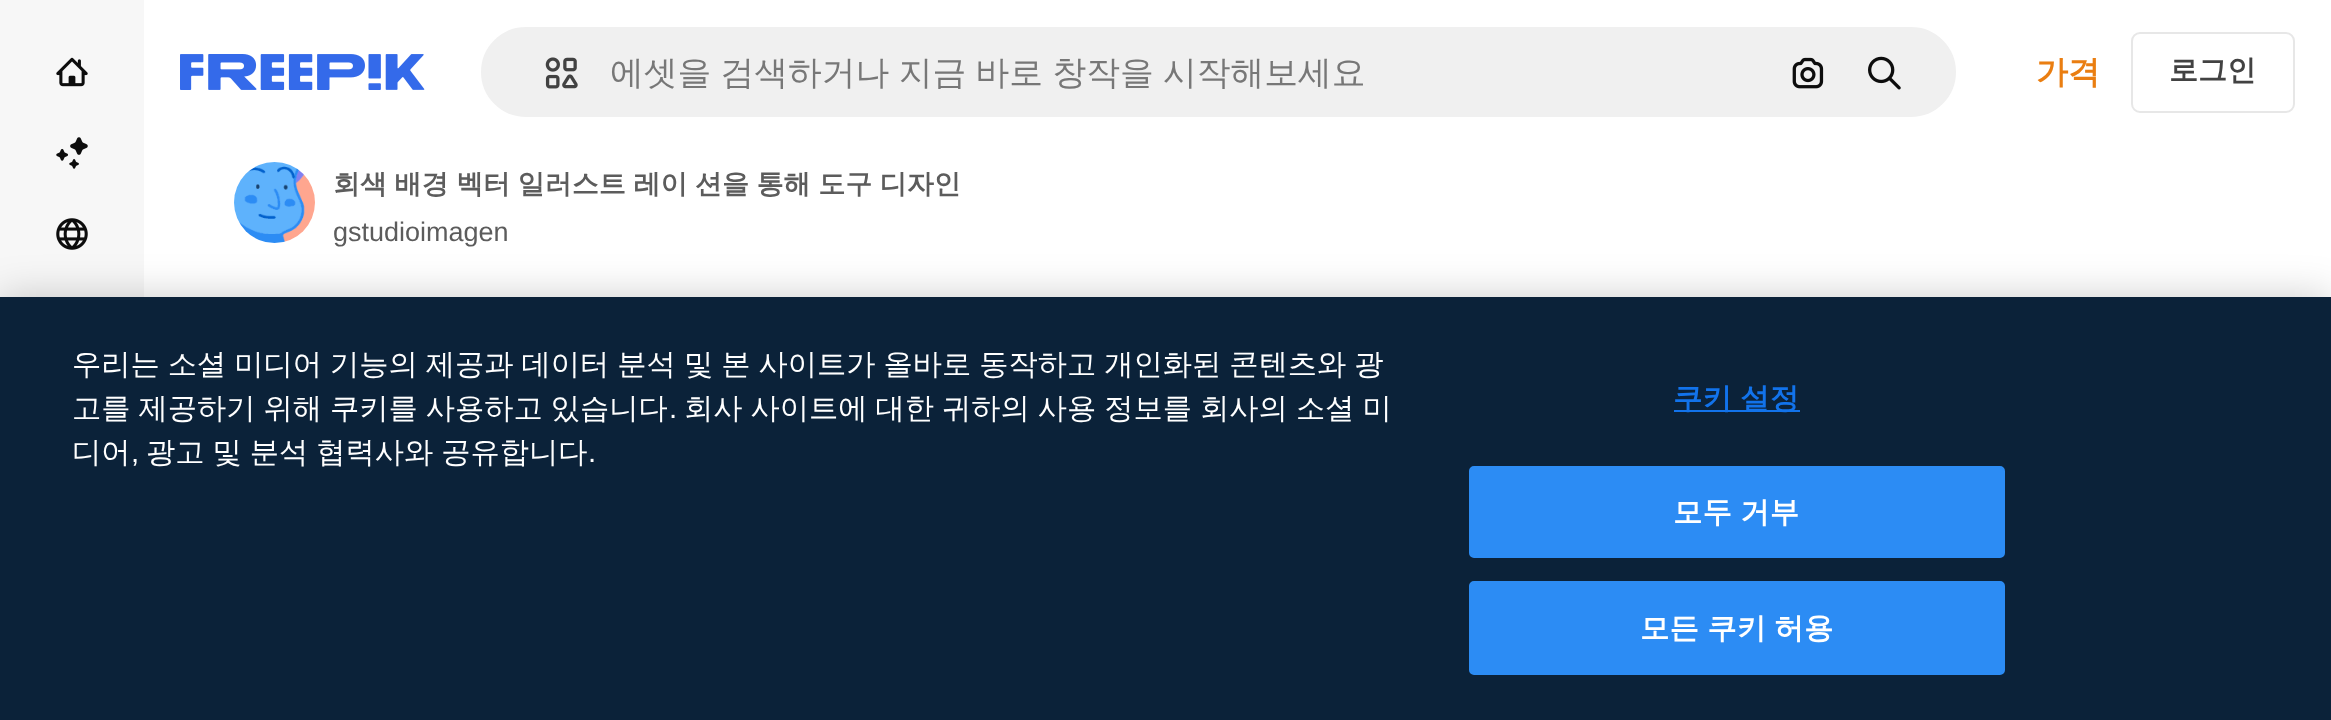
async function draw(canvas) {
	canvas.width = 2331;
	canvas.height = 720;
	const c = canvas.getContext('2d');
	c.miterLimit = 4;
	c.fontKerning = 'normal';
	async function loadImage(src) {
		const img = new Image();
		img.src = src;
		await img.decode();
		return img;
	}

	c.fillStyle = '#fff';
	c.fillRect(0, 0, 2331, 720);
	c.fillStyle = '#f7f7f7';
	c.fillRect(0, 0, 144, 297);
	c.drawImage(await loadImage('img1.png'), 56, 57, 32, 30);
	c.drawImage(await loadImage('img2.png'), 56, 137, 32, 32);
	c.drawImage(await loadImage('img3.png'), 56, 218, 32, 32);
	c.drawImage(await loadImage('img4.png'), 180, 54, 245, 36);
	c.fillStyle = '#f0f0f0';
	c.beginPath();
	c.roundRect(480, 26, 1477, 92, 46);
	c.fill();
	c.strokeStyle = '#fff';
	c.lineWidth = 2;
	c.stroke();
	c.drawImage(await loadImage('img5.png'), 545, 57, 33, 32);
	c.wordSpacing = '-0.75px';
	c.font = '500 33.75px WenQuanYi Zen Hei';
	c.fillStyle = '#777';
	c.fillText('에셋을 검색하거나 지금 바로 창작을 시작해보세요', 610, 84);
	c.drawImage(await loadImage('img6.png'), 1792, 57, 32, 32);
	c.drawImage(await loadImage('img7.png'), 1868, 56, 33, 34);
	c.wordSpacing = '0px';
	c.font = 'bold 32px WenQuanYi Zen Hei';
	c.fillStyle = '#ea7e11';
	c.fillText('가격', 2036, 83);
	c.beginPath();
	c.roundRect(2132, 33, 162, 79, 8);
	c.strokeStyle = '#e7e7e7';
	c.stroke();
	c.font = 'bold 29px WenQuanYi Zen Hei';
	c.fillStyle = '#424242';
	c.fillText('로그인', 2169, 80);
	c.drawImage(await loadImage('img8.png'), 234, 162, 81, 81);
	c.wordSpacing = '-0.5px';
	c.font = 'bold 27px WenQuanYi Zen Hei';
	c.fillStyle = '#5c5c5c';
	c.fillText('회색 배경 벡터 일러스트 레이 션을 통해 도구 디자인', 333, 193);
	c.wordSpacing = '0px';
	c.font = '27px Liberation Sans';
	c.fillText('gstudioimagen', 333, 241);
	c.fillStyle = '#00000033';
	c.filter = 'blur(20px)';
	c.beginPath();
	c.rect(0, 297, 2331, 423);
	c.fill();
	c.filter = 'none';
	c.fillStyle = '#0b2239';
	c.fillRect(0, 297, 2331, 423);
	c.wordSpacing = '-0.75px';
	c.font = '500 29.25px WenQuanYi Zen Hei';
	c.fillStyle = '#fff';
	c.fillText('우리는 소셜 미디어 기능의 제공과 데이터 분석 및 본 사이트가 올바로 동작하고 개인화된 콘텐츠와 광', 72, 374);
	c.fillText('고를 제공하기 위해 쿠키를 사용하고 있습니다', 72, 418);
	c.wordSpacing = '0px';
	c.font = '29.25px Liberation Sans';
	c.fillText('.', 669, 418);
	c.wordSpacing = '-0.75px';
	c.font = '500 29.25px WenQuanYi Zen Hei';
	c.fillText('회사 사이트에 대한 귀하의 사용 정보를 회사의 소셜 미', 684, 418);
	c.wordSpacing = '0px';
	c.fillText('디어', 72, 462);
	c.font = '29.25px Liberation Sans';
	c.fillText(',', 131, 462);
	c.wordSpacing = '-0.75px';
	c.font = '500 29.25px WenQuanYi Zen Hei';
	c.fillText('광고 및 분석 협력사와 공유합니다', 146, 462);
	c.wordSpacing = '0px';
	c.font = '29.25px Liberation Sans';
	c.fillText('.', 588, 462);
	c.fillStyle = '#1273eb';
	c.fillRect(1674, 410, 126, 2);
	c.letterSpacing = '0.25px';
	c.wordSpacing = '-0.75px';
	c.font = 'bold 29.25px WenQuanYi Zen Hei';
	c.fillText('쿠키 설정', 1673, 408);
	c.fillStyle = '#2c8cf4';
	c.beginPath();
	c.roundRect(1470, 467, 534, 90, 4);
	c.fill();
	c.strokeStyle = '#2c8cf4';
	c.stroke();
	c.fillStyle = '#fff';
	c.fillText('모두 거부', 1673, 522);
	c.fillStyle = '#2c8cf4';
	c.beginPath();
	c.roundRect(1470, 582, 534, 92, 4);
	c.fill();
	c.stroke();
	c.fillStyle = '#fff';
	c.fillText('모든 쿠키 허용', 1640, 638);
}

draw(document.querySelector('canvas'));
